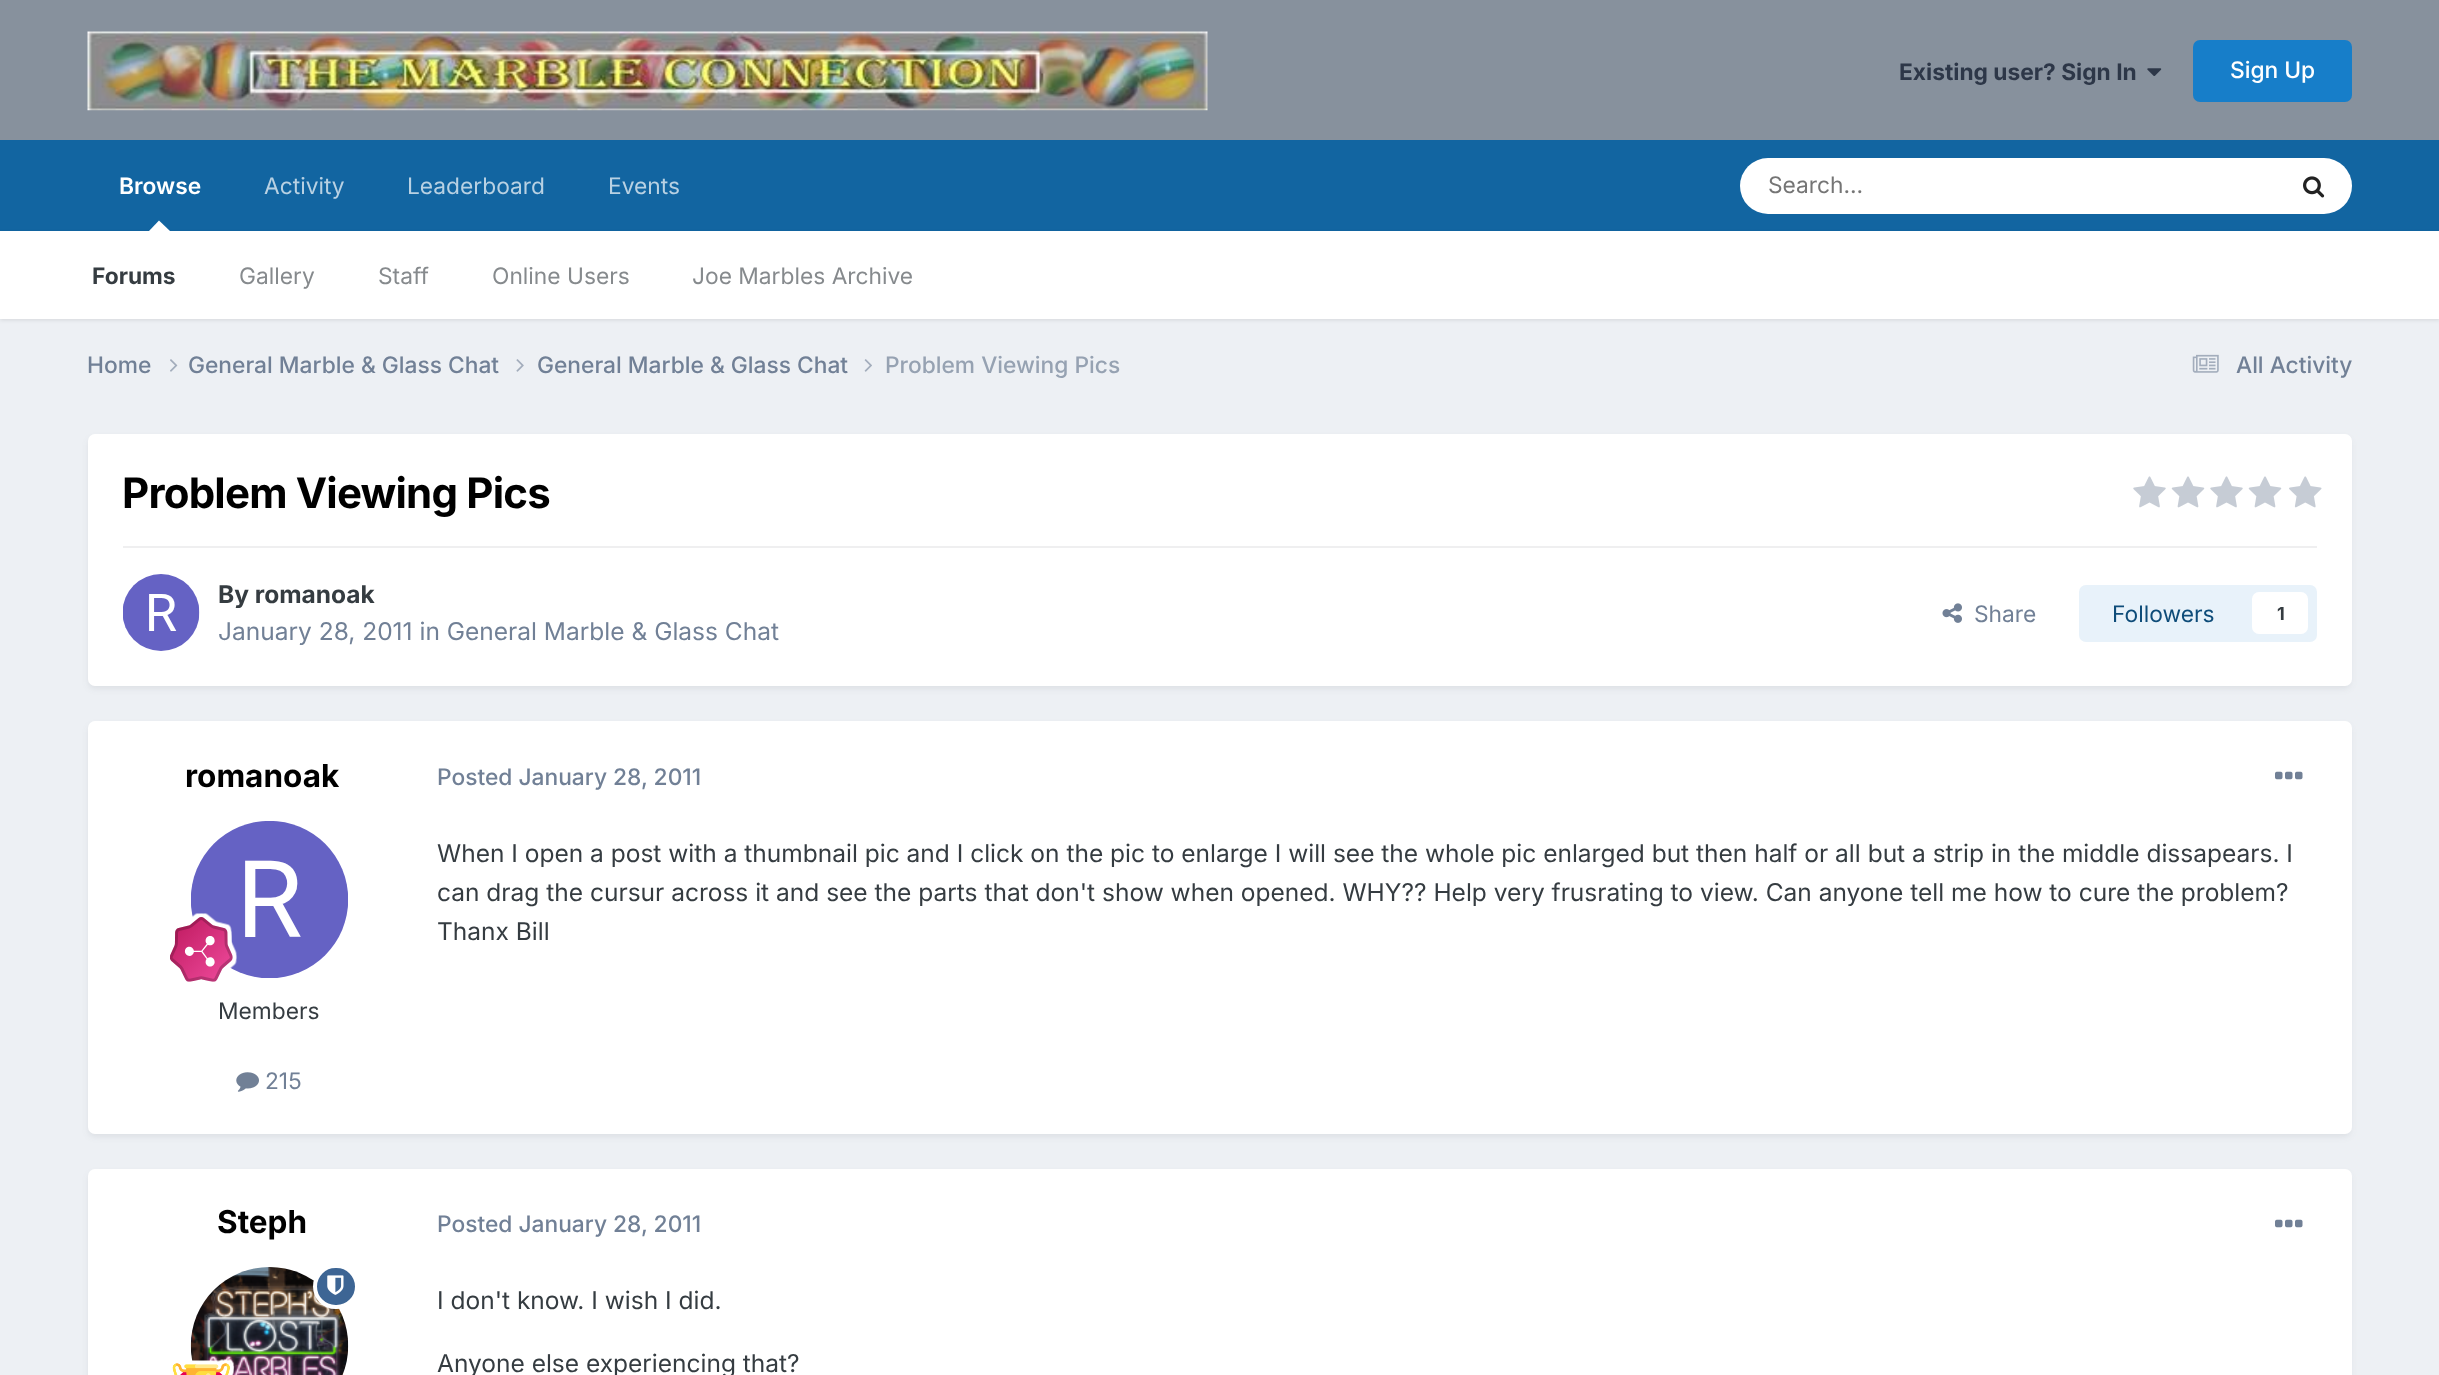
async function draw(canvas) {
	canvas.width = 2439;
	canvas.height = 1375;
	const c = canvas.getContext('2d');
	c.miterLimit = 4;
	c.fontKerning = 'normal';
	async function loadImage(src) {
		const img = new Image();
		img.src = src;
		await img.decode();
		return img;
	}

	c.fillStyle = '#edf0f4';
	c.fillRect(0, 0, 2439, 1375);
	c.fillStyle = '#87919d';
	c.fillRect(0, 0, 2439, 140);
	c.drawImage(await loadImage('img1.png'), 87, 31, 1121, 80);
	c.font = 'bold 22.75px Inter';
	c.fillStyle = '#2d3748';
	c.fillText('Existing user? Sign In', 1899, 80);
	c.drawImage(await loadImage('img2.png'), 2147, 68, 15, 8);
	c.fillStyle = '#177ec9';
	c.beginPath();
	c.roundRect(2193, 40, 159, 62, 7);
	c.fill();
	c.font = '500 22.75px Inter';
	c.fillStyle = '#fff';
	c.fillText('Sign Up', 2230, 78);
	c.fillStyle = '#1265a1';
	c.fillRect(0, 140, 2439, 91);
	c.font = '22.75px Inter';
	c.fillStyle = '#b8d1e3';
	c.fillText('Activity', 264, 194);
	c.font = '600 22.75px Inter';
	c.fillStyle = '#fff';
	c.fillText('Browse', 119, 194);
	c.fillStyle = '#0000001a';
	c.filter = 'blur(2px)';
	c.beginPath();
	c.rect(0, 233, 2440, 87);
	c.fill();
	c.filter = 'none';
	c.fillStyle = '#fff';
	c.beginPath();
	c.moveTo(170, 231);
	c.lineTo(149, 231);
	c.lineTo(159, 220.5);
	c.closePath();
	c.fill();
	c.fillRect(0, 231, 2439, 88);
	c.font = 'bold 22.75px Inter';
	c.fillStyle = '#353c41';
	c.fillText('Forums', 92, 284);
	c.font = '22.75px Inter';
	c.fillStyle = '#868a8d';
	for (const [text, x, y] of [
		['Gallery', 239, 284],
		['Staff', 378, 284],
		['Online Users', 492, 284],
		['Joe Marbles Archive', 692, 284],
	]) {
		c.fillText(text, x, y);
	}
	c.fillStyle = '#b8d1e3';
	c.fillText('Leaderboard', 407, 194);
	c.fillText('Events', 608, 194);
	c.fillStyle = '#fff';
	c.beginPath();
	c.roundRect(1740, 158, 612, 56, 28);
	c.fill();
	c.fillStyle = '#757575';
	c.fillText('Search...', 1768, 193);
	c.drawImage(await loadImage('img3.png'), 2303, 176, 22, 22);
	c.font = '500 22.75px Inter';
	c.fillStyle = '#718096';
	c.fillText('Home', 87, 373);
	c.drawImage(await loadImage('img4.png'), 170, 359, 8, 13);
	c.fillText('General Marble & Glass Chat', 188, 373);
	c.drawImage(await loadImage('img5.png'), 516, 359, 8, 13);
	c.fillText('General Marble & Glass Chat', 537, 373);
	c.drawImage(await loadImage('img6.png'), 864, 359, 8, 13);
	c.fillStyle = '#96a2b2';
	c.fillText('Problem Viewing Pics', 885, 373);
	c.drawImage(await loadImage('img7.png'), 2192, 354, 27, 19);
	c.fillStyle = '#718096';
	c.fillText('All Activity', 2236, 373);
	c.fillStyle = '#2d37481a';
	c.filter = 'blur(3.5px)';
	c.beginPath();
	c.roundRect(89, 439, 2261, 249, 5);
	c.fill();
	c.filter = 'none';
	c.fillStyle = '#fff';
	c.beginPath();
	c.roundRect(88, 434, 2264, 252, 7);
	c.fill();
	c.letterSpacing = '-0.8px';
	c.font = 'bold 42px Inter';
	c.fillStyle = '#000';
	c.fillText('Problem Viewing Pics', 122, 508);
	c.drawImage(await loadImage('img8.png'), 2133, 476, 33, 32);
	c.drawImage(await loadImage('img9.png'), 2171, 476, 34, 32);
	c.drawImage(await loadImage('img8.png'), 2210, 476, 33, 32);
	c.drawImage(await loadImage('img9.png'), 2248, 476, 34, 32);
	c.drawImage(await loadImage('img10.png'), 2289, 476, 33, 32);
	c.fillStyle = '#efeff0';
	c.fillRect(123, 546, 2194, 2);
	c.drawImage(await loadImage('img11.png'), 123, 574, 77, 77);
	c.letterSpacing = '0px';
	c.font = 'bold 24.5px Inter';
	c.fillStyle = '#353c41';
	c.fillText('By romanoak', 218, 603);
	c.font = '24.5px Inter';
	c.fillStyle = '#718096';
	c.fillText('January 28, 2011 in General Marble & Glass Chat', 218, 640);
	c.drawImage(await loadImage('img12.png'), 1942, 603, 20, 20);
	c.font = '22.75px Inter';
	c.fillText('Share', 1974, 622);
	c.fillStyle = '#e8f2fa';
	c.beginPath();
	c.roundRect(2079, 585, 238, 57, 7);
	c.fill();
	c.fillStyle = '#0e4c79';
	c.fillText('Followers', 2112, 622);
	c.fillStyle = '#fff';
	c.beginPath();
	c.roundRect(2252, 592, 56, 42, 7);
	c.fill();
	c.font = 'bold 18px Inter';
	c.fillStyle = '#353c41';
	c.fillText('1', 2277, 620);
	c.fillStyle = '#2d37481a';
	c.filter = 'blur(3.5px)';
	c.beginPath();
	c.roundRect(89, 726, 2261, 410, 5);
	c.fill();
	c.filter = 'none';
	c.fillStyle = '#fff';
	c.beginPath();
	c.roundRect(88, 721, 2264, 413, 7);
	c.fill();
	c.font = 'bold 31.5px Inter';
	c.fillStyle = '#000';
	c.fillText('romanoak', 185, 787);
	c.drawImage(await loadImage('img13.png'), 191, 821, 157, 157);
	c.drawImage(await loadImage('img14.png'), 170, 913, 67, 69);
	c.font = '22.75px Inter';
	c.fillStyle = '#353c41';
	c.fillText('Members', 218, 1019);
	c.drawImage(await loadImage('img15.png'), 236, 1072, 23, 20);
	c.fillStyle = '#718096';
	c.fillText('215', 265, 1089);
	c.font = '500 22.75px Inter';
	c.fillText('Posted January 28, 2011', 437, 785);
	c.drawImage(await loadImage('img16.png'), 2275, 771, 28, 9);
	c.font = '24.5px Inter';
	c.fillStyle = '#353c41';
	for (const [text, x, y] of [
		['When I open a post with a thumbnail pic and I click on the pic to enlarge I will see the whole pic enlarged but then half or all but a strip in the middle dissapears. I', 437, 862],
		['can drag the cursur across it and see the parts that don\'t show when opened. WHY?? Help very frusrating to view. Can anyone tell me how to cure the problem?', 437, 901],
		['Thanx Bill', 437, 940],
	]) {
		c.fillText(text, x, y);
	}
	c.fillStyle = '#2d37481a';
	c.filter = 'blur(3.5px)';
	c.beginPath();
	c.roundRect(89, 1174, 2261, 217, 5);
	c.fill();
	c.filter = 'none';
	c.fillStyle = '#fff';
	c.beginPath();
	c.roundRect(88, 1169, 2264, 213, 7);
	c.fill();
	c.font = 'bold 31.5px Inter';
	c.fillStyle = '#000';
	c.fillText('Steph', 217, 1233);
	c.drawImage(await loadImage('img18.png'), 190, 1267, 159, 108);
	c.fillStyle = '#3d6594';
	c.beginPath();
	c.roundRect(315, 1266, 42, 41, 20.5);
	c.fill();
	c.strokeStyle = '#fff';
	c.lineWidth = 4;
	c.stroke();
	c.drawImage(await loadImage('img17.png'), 327, 1275, 17, 20);
	c.drawImage(await loadImage('img19.png'), 172, 1359, 62, 16);
	c.font = '500 22.75px Inter';
	c.fillStyle = '#718096';
	c.fillText('Posted January 28, 2011', 437, 1232);
	c.drawImage(await loadImage('img16.png'), 2275, 1219, 28, 9);
	c.font = '24.5px Inter';
	c.fillStyle = '#353c41';
	c.fillText('I don\'t know. I wish I did.', 437, 1309);
	c.fillText('Anyone else experiencing that?', 437, 1372);
}

draw(document.querySelector('canvas'));
